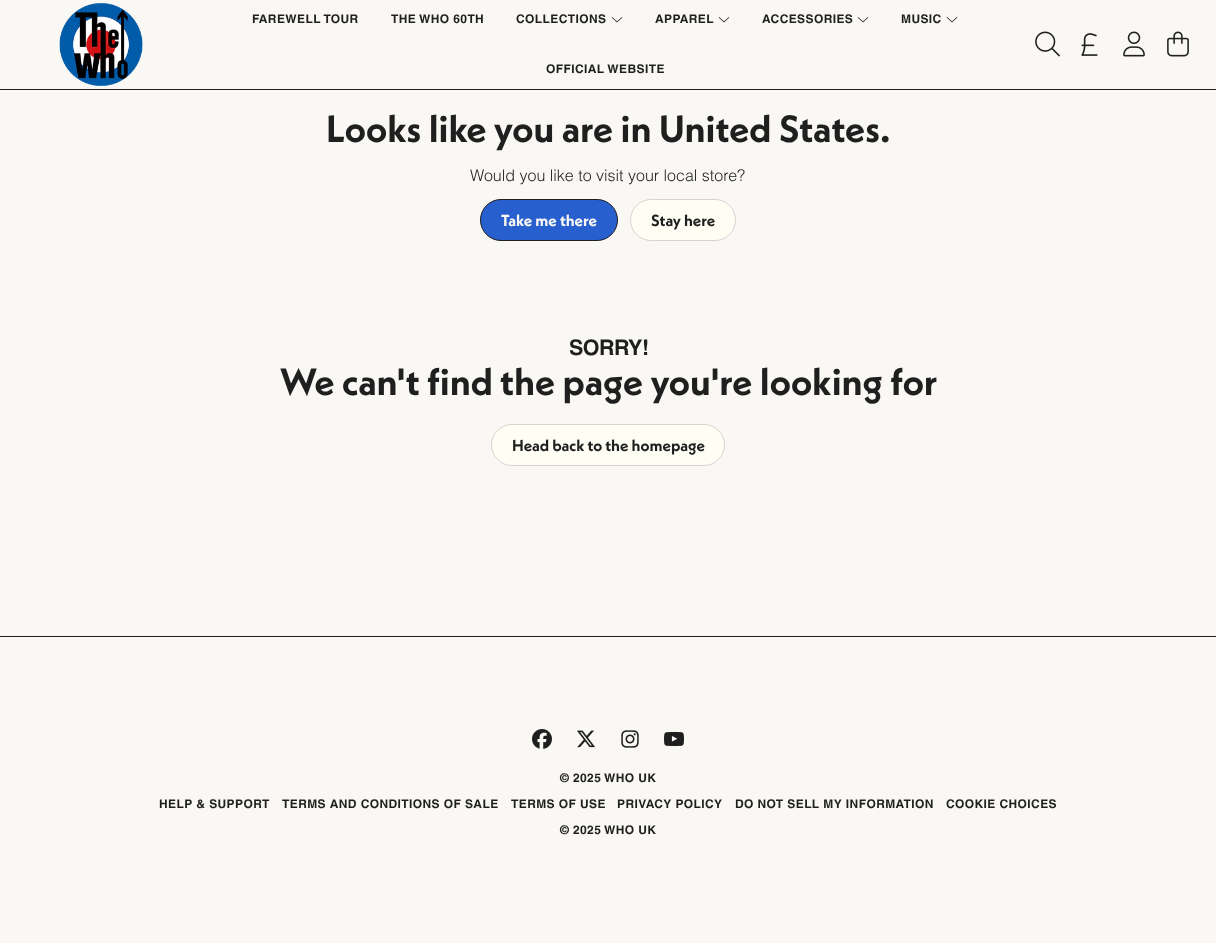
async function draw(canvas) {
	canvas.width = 1216;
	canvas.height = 943;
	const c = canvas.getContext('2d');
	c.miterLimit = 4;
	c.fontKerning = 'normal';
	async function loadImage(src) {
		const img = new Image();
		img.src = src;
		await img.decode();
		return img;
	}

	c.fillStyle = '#faf8f5';
	c.fillRect(0, 0, 1216, 943);
	c.fillStyle = '#1f1f1f';
	c.fillRect(0, 89, 1216, 1);
	c.drawImage(await loadImage('img1.png'), 59, 3, 84, 83);
	c.letterSpacing = '0.4px';
	c.font = 'bold 12px Helvetica';
	for (const [text, x, y] of [
		['FAREWELL TOUR', 252, 23],
		['THE WHO 60TH', 391, 23],
		['COLLECTIONS', 516, 23],
	]) {
		c.fillText(text, x, y);
	}
	c.drawImage(await loadImage('img2.png'), 611, 17, 12, 6);
	c.fillText('APPAREL', 655, 23);
	c.drawImage(await loadImage('img2.png'), 718, 17, 12, 6);
	c.fillText('ACCESSORIES', 762, 23);
	c.drawImage(await loadImage('img2.png'), 857, 17, 12, 6);
	c.fillText('MUSIC', 901, 23);
	c.drawImage(await loadImage('img2.png'), 946, 17, 12, 6);
	c.fillText('OFFICIAL WEBSITE', 546, 73);
	c.drawImage(await loadImage('img3.png'), 1035, 31, 25, 26);
	c.drawImage(await loadImage('img4.png'), 1081, 33, 17, 23);
	c.drawImage(await loadImage('img5.png'), 1123, 31, 22, 26);
	c.drawImage(await loadImage('img6.png'), 1167, 31, 22, 26);
	c.letterSpacing = '0px';
	c.font = 'bold 37.9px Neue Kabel';
	c.fillText('Looks like you are in United States.', 326, 142);
	c.font = '300 16px Helvetica';
	c.fillText('Would you like to visit your local store?', 470, 181);
	c.fillStyle = '#275fce';
	c.beginPath();
	c.roundRect(480.5, 199.5, 137, 41, 20.5);
	c.fill();
	c.strokeStyle = '#1f1f1f';
	c.stroke();
	c.font = 'bold 16px Neue Kabel';
	c.fillStyle = '#faf8f5';
	c.fillText('Take me there', 501, 226);
	c.fillStyle = '#fffef5';
	c.beginPath();
	c.roundRect(630.5, 199.5, 105, 41, 20.5);
	c.fill();
	c.strokeStyle = '#d6d3d1';
	c.stroke();
	c.fillStyle = '#1f1f1f';
	c.fillText('Stay here', 651, 226);
	c.letterSpacing = '-0.5px';
	c.font = 'bold 21.5px Helvetica';
	c.fillText('SORRY!', 569, 355);
	c.letterSpacing = '0px';
	c.font = 'bold 37.9px Neue Kabel';
	c.fillText('We can\'t find the page you\'re looking for', 280, 395);
	c.fillStyle = '#fffef5';
	c.beginPath();
	c.roundRect(491.5, 424.5, 233, 41, 20.5);
	c.fill();
	c.stroke();
	c.font = 'bold 16px Neue Kabel';
	c.fillStyle = '#1f1f1f';
	c.fillText('Head back to the homepage', 512, 451);
	c.fillRect(0, 636, 1216, 1);
	c.drawImage(await loadImage('img7.png'), 532, 729, 20, 20);
	c.drawImage(await loadImage('img8.png'), 577, 730, 18, 18);
	c.drawImage(await loadImage('img9.png'), 621, 730, 18, 18);
	c.drawImage(await loadImage('img10.png'), 664, 732, 20, 14);
	c.letterSpacing = '0.4px';
	c.font = 'bold 12px Helvetica';
	for (const [text, x, y] of [
		['© 2025 WHO UK', 560, 782],
		['HELP & SUPPORT', 159, 808],
		['TERMS AND CONDITIONS OF SALE', 282, 808],
		['TERMS OF USE', 511, 808],
		['PRIVACY POLICY', 617, 808],
		['DO NOT SELL MY INFORMATION', 735, 808],
		['COOKIE CHOICES', 946, 808],
		['© 2025 WHO UK', 560, 834],
	]) {
		c.fillText(text, x, y);
	}
}

draw(document.querySelector('canvas'));
